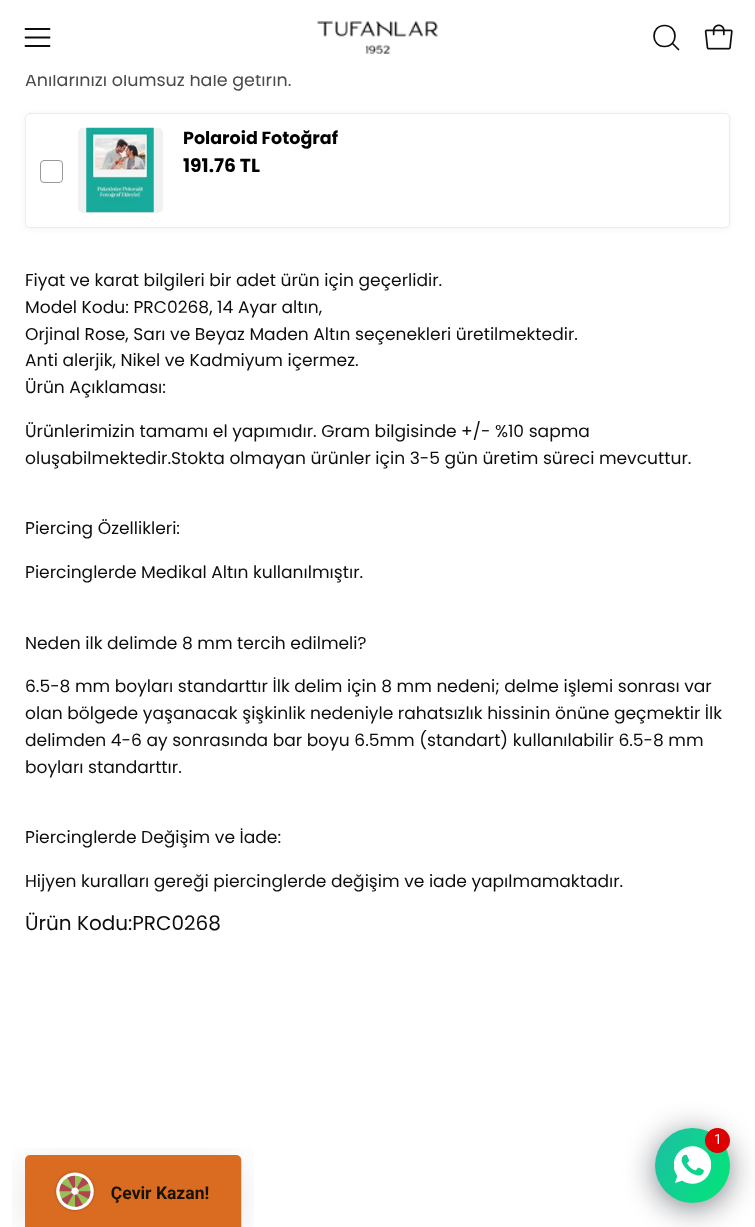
async function draw(canvas) {
	canvas.width = 755;
	canvas.height = 1227;
	const c = canvas.getContext('2d');
	c.miterLimit = 4;
	c.fontKerning = 'normal';
	async function loadImage(src) {
		const img = new Image();
		img.src = src;
		await img.decode();
		return img;
	}
	let gradient;

	c.fillStyle = '#fff';
	c.fillRect(0, 0, 755, 1227);
	c.font = '17.5px Poppins';
	c.fillStyle = '#4a4a4a';
	c.fillText('Anılarınızı ölümsüz hale getirin.', 25, 86);
	c.fillStyle = '#fff';
	c.fillRect(29, 72, 247, 3);
	c.beginPath();
	c.moveTo(25.5, 37.5);
	c.lineTo(49.5, 37.5);
	c.moveTo(25.5, 29);
	c.lineTo(49.5, 29);
	c.moveTo(25.5, 46);
	c.lineTo(49.5, 46);
	c.strokeStyle = '#0d0d0d';
	c.lineWidth = 1.8;
	c.lineCap = 'round';
	c.lineJoin = 'round';
	c.stroke();
	c.drawImage(await loadImage('img1.png'), 317, 21, 121, 33);
	c.beginPath();
	c.moveTo(664.5, 46.5);
	c.bezierCurveTo(678.5, 46.5, 678.5, 25.5, 664.5, 25.5);
	c.bezierCurveTo(650.5, 25.5, 650.5, 46.5, 664.5, 46.5);
	c.closePath();
	c.moveTo(672.5, 43.5);
	c.lineTo(678.5, 49.5);
	c.lineWidth = 1.7;
	c.stroke();
	c.drawImage(await loadImage('img2.png'), 704, 24, 29, 26);
	c.fillStyle = '#7c7c7c1a';
	c.filter = 'blur(3px)';
	c.beginPath();
	c.roundRect(25, 114, 705, 115, 5);
	c.fill();
	c.filter = 'none';
	c.fillStyle = '#fff';
	c.beginPath();
	c.roundRect(25, 113, 705, 115, 5);
	c.fill();
	c.beginPath();
	c.roundRect(25.5, 113.5, 704, 114, 4.5);
	c.strokeStyle = '#babfc34d';
	c.lineWidth = 1;
	c.lineJoin = 'miter';
	c.stroke();
	c.beginPath();
	c.roundRect(40.5, 160.5, 22, 22, 3.5);
	c.strokeStyle = '#999';
	c.stroke();
	c.fillStyle = '#f1f1f1';
	c.beginPath();
	c.roundRect(78, 128, 85, 85, 5);
	c.fill();
	c.drawImage(await loadImage('img3.png'), 86, 127, 68, 86);
	c.font = 'bold 17.5px Poppins';
	c.fillStyle = '#000';
	c.fillText('Polaroid Fotoğraf', 183, 144);
	c.font = 'bold 18.75px Poppins';
	c.fillText('191.76 TL', 183, 172);
	c.font = '17.1px Poppins';
	c.fillStyle = '#0d0d0d';
	for (const [text, x, y] of [
		['Fiyat ve karat bilgileri bir adet ürün için geçerlidir.', 25, 286],
		['Model Kodu: PRC0268, 14 Ayar altın,', 25, 313],
		['Orjinal Rose, Sarı ve Beyaz Maden Altın seçenekleri üretilmektedir.', 25, 340],
		['Anti alerjik, Nikel ve Kadmiyum içermez.', 25, 366],
		['Ürün Açıklaması:', 25, 393],
		['Ürünlerimizin tamamı el yapımıdır. Gram bilgisinde +/- %10 sapma', 25, 437],
		['oluşabilmektedir.Stokta olmayan ürünler için 3-5 gün üretim süreci mevcuttur.', 25, 464],
		['Piercing Özellikleri:', 25, 534],
		['Piercinglerde Medikal Altın kullanılmıştır.', 25, 578],
		['Neden ilk delimde 8 mm tercih edilmeli?', 25, 649],
		['6.5-8 mm boyları standarttır İlk delim için 8 mm nedeni; delme işlemi sonrası var', 25, 692],
		['olan bölgede yaşanacak şişkinlik nedeniyle rahatsızlık hissinin önüne geçmektir İlk', 25, 719],
		['delimden 4-6 ay sonrasında bar boyu 6.5mm (standart) kullanılabilir 6.5-8 mm', 25, 746],
		['boyları standarttır.', 25, 773],
		['Piercinglerde Değişim ve İade:', 25, 843],
		['Hijyen kuralları gereği piercinglerde değişim ve iade yapılmamaktadır.', 25, 887],
	]) {
		c.fillText(text, x, y);
	}
	c.font = '20px Poppins';
	c.fillText('Ürün Kodu:PRC0268', 25, 930);
	c.fillStyle = '#02061080';
	c.filter = 'blur(15px)';
	c.beginPath();
	c.roundRect(655, 1133, 75, 75, 37.5);
	c.fill();
	c.filter = 'none';
	gradient = c.createLinearGradient(647, 1144, 738, 1186);
	gradient.addColorStop(0, '#1ebea5');
	gradient.addColorStop(1, '#01e677');
	c.fillStyle = gradient;
	c.beginPath();
	c.arc(692.5, 1165.5, 37.5, 0, 2 * Math.PI);
	c.fill();
	c.drawImage(await loadImage('img4.png'), 674, 1146, 37, 38);
	c.fillStyle = '#d00';
	c.beginPath();
	c.arc(717.5, 1140.5, 12.5, 0, 2 * Math.PI);
	c.fill();
	c.font = '14px Roboto';
	c.fillStyle = '#fff';
	c.fillText('1', 714, 1144);
	c.drawImage(await loadImage('img5.png'), 12, 1148, 242, 79);
}

draw(document.querySelector('canvas'));
